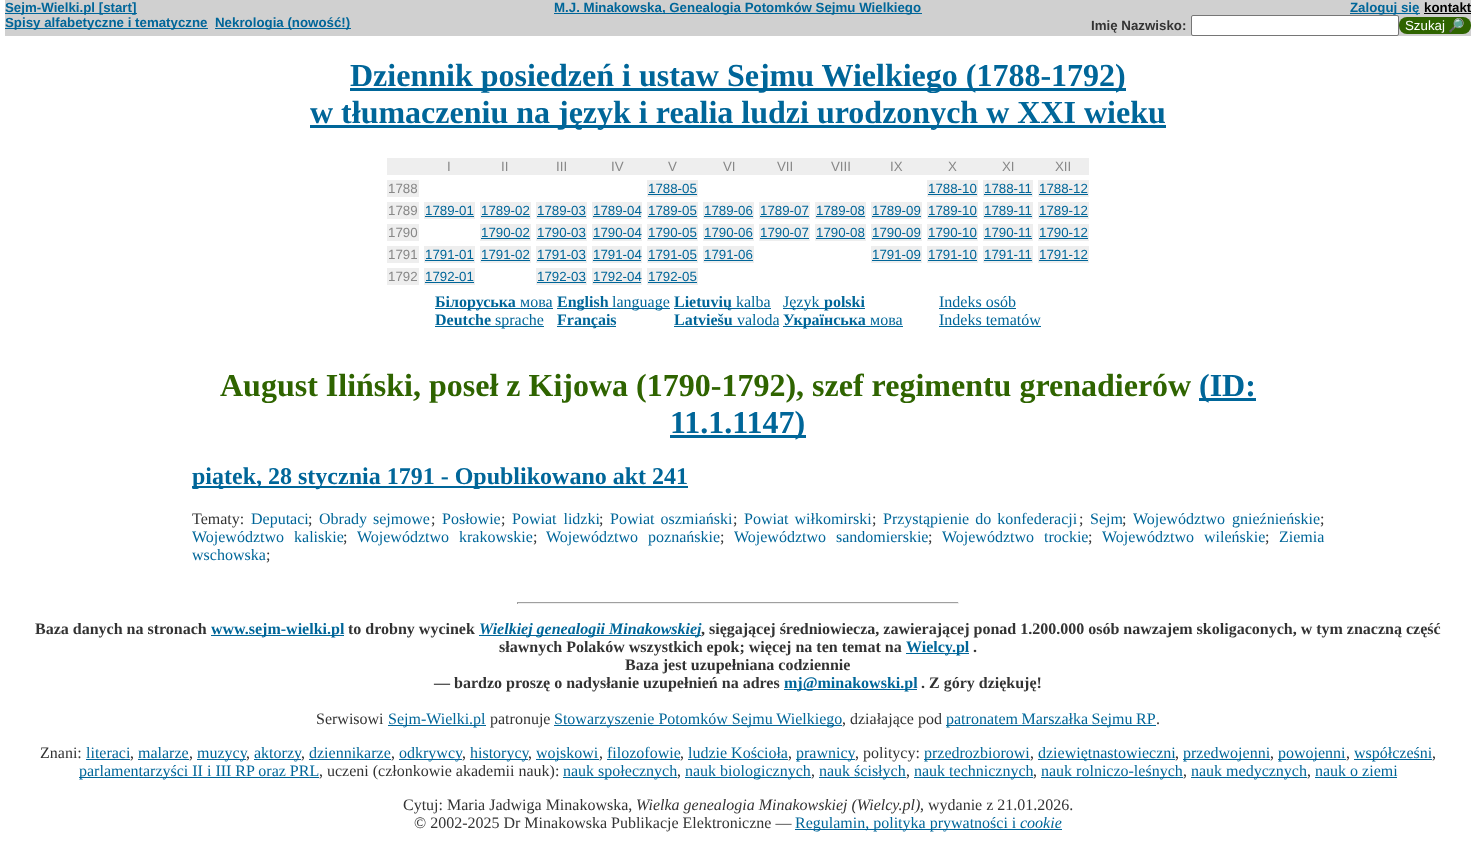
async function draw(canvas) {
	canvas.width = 1476;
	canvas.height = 850;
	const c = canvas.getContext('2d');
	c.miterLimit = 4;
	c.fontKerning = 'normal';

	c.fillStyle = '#fff';
	c.fillRect(0, 0, 1476, 850);
	c.fillStyle = '#d0d0d0';
	c.fillRect(5, 0, 1466, 36);
	c.fillStyle = '#069';
	c.fillRect(5, 13, 132, 1);
	c.font = 'bold 13.3px Liberation Sans';
	c.fillText('Sejm-Wielki.pl [start]', 5, 12);
	c.fillRect(554, 13, 368, 1);
	c.fillText('M.J. Minakowska, Genealogia Potomków Sejmu Wielkiego', 554, 12);
	c.fillRect(1350, 13, 70, 1);
	c.fillText('Zaloguj się', 1350, 12);
	c.fillStyle = '#000';
	c.fillText('kontakt', 1424, 12);
	c.fillRect(1424, 13, 47, 1);
	c.fillStyle = '#069';
	c.fillRect(5, 28, 203, 1);
	c.fillText('Spisy alfabetyczne i tematyczne', 5, 27);
	c.fillRect(215, 28, 136, 1);
	c.fillText('Nekrologia (nowość!)', 215, 27);
	c.fillStyle = '#333';
	c.fillText('Imię Nazwisko:', 1091, 30);
	c.fillStyle = '#fff';
	c.beginPath();
	c.roundRect(1191.5, 15.5, 207, 20, 1.5);
	c.fill();
	c.strokeStyle = '#767676';
	c.stroke();
	c.fillStyle = '#2f6400';
	c.beginPath();
	c.roundRect(1399, 17, 72, 17, 8);
	c.fill();
	c.font = '13.3px Liberation Sans';
	c.fillStyle = '#fff';
	c.fillText('Szukaj', 1405, 30);
	c.font = '13.3px Noto Color Emoji';
	c.fillText('🔎', 1448, 30);
	c.fillStyle = '#069';
	c.fillRect(350, 88, 776, 3);
	c.font = 'bold 32px Liberation Serif';
	c.fillText('Dziennik posiedzeń i ustaw Sejmu Wielkiego (1788-1792)', 350, 86);
	c.fillRect(310, 125, 856, 3);
	c.fillText('w tłumaczeniu na język i realia ludzi urodzonych w XXI wieku', 310, 123);
	c.fillStyle = '#eee';
	c.fillRect(387, 158, 702, 17);
	c.font = '13.3px Liberation Sans';
	c.fillStyle = '#888';
	for (const [text, x, y] of [
		['I', 447, 171],
		['II', 501, 171],
		['III', 556, 171],
		['IV', 611, 171],
		['V', 668, 171],
		['VI', 723, 171],
		['VII', 777, 171],
		['VIII', 831, 171],
		['IX', 890, 171],
		['X', 948, 171],
		['XI', 1002, 171],
		['XII', 1055, 171],
	]) {
		c.fillText(text, x, y);
	}
	c.fillStyle = '#eee';
	c.fillRect(387, 180, 32, 17);
	c.fillStyle = '#888';
	c.fillText('1788', 388, 193);
	c.fillStyle = '#eee';
	c.fillRect(647, 180, 51, 17);
	c.fillStyle = '#069';
	c.fillText('1788-05', 648, 193);
	c.fillRect(648, 194, 49, 1);
	c.fillStyle = '#eee';
	c.fillRect(927, 180, 51, 17);
	c.fillStyle = '#069';
	c.fillText('1788-10', 928, 193);
	c.fillRect(928, 194, 49, 1);
	c.fillStyle = '#eee';
	c.fillRect(983, 180, 50, 17);
	c.fillStyle = '#069';
	c.fillText('1788-11', 984, 193);
	c.fillRect(984, 194, 48, 1);
	c.fillStyle = '#eee';
	c.fillRect(1038, 180, 51, 17);
	c.fillStyle = '#069';
	c.fillText('1788-12', 1039, 193);
	c.fillRect(1039, 194, 49, 1);
	c.fillStyle = '#eee';
	c.fillRect(387, 202, 32, 17);
	c.fillStyle = '#888';
	c.fillText('1789', 388, 215);
	c.fillStyle = '#eee';
	c.fillRect(424, 202, 51, 17);
	c.fillStyle = '#069';
	c.fillText('1789-01', 425, 215);
	c.fillRect(425, 216, 49, 1);
	c.fillStyle = '#eee';
	c.fillRect(480, 202, 51, 17);
	c.fillStyle = '#069';
	c.fillText('1789-02', 481, 215);
	c.fillRect(481, 216, 49, 1);
	c.fillStyle = '#eee';
	c.fillRect(536, 202, 51, 17);
	c.fillStyle = '#069';
	c.fillText('1789-03', 537, 215);
	c.fillRect(537, 216, 49, 1);
	c.fillStyle = '#eee';
	c.fillRect(592, 202, 50, 17);
	c.fillStyle = '#069';
	c.fillText('1789-04', 593, 215);
	c.fillRect(593, 216, 48, 1);
	c.fillStyle = '#eee';
	c.fillRect(647, 202, 51, 17);
	c.fillStyle = '#069';
	c.fillText('1789-05', 648, 215);
	c.fillRect(648, 216, 49, 1);
	c.fillStyle = '#eee';
	c.fillRect(703, 202, 51, 17);
	c.fillStyle = '#069';
	c.fillText('1789-06', 704, 215);
	c.fillRect(704, 216, 49, 1);
	c.fillStyle = '#eee';
	c.fillRect(759, 202, 51, 17);
	c.fillStyle = '#069';
	c.fillText('1789-07', 760, 215);
	c.fillRect(760, 216, 49, 1);
	c.fillStyle = '#eee';
	c.fillRect(815, 202, 51, 17);
	c.fillStyle = '#069';
	c.fillText('1789-08', 816, 215);
	c.fillRect(816, 216, 49, 1);
	c.fillStyle = '#eee';
	c.fillRect(871, 202, 51, 17);
	c.fillStyle = '#069';
	c.fillText('1789-09', 872, 215);
	c.fillRect(872, 216, 49, 1);
	c.fillStyle = '#eee';
	c.fillRect(927, 202, 51, 17);
	c.fillStyle = '#069';
	c.fillText('1789-10', 928, 215);
	c.fillRect(928, 216, 49, 1);
	c.fillStyle = '#eee';
	c.fillRect(983, 202, 50, 17);
	c.fillStyle = '#069';
	c.fillText('1789-11', 984, 215);
	c.fillRect(984, 216, 48, 1);
	c.fillStyle = '#eee';
	c.fillRect(1038, 202, 51, 17);
	c.fillStyle = '#069';
	c.fillText('1789-12', 1039, 215);
	c.fillRect(1039, 216, 49, 1);
	c.fillStyle = '#eee';
	c.fillRect(387, 224, 32, 17);
	c.fillStyle = '#888';
	c.fillText('1790', 388, 237);
	c.fillStyle = '#eee';
	c.fillRect(480, 224, 51, 17);
	c.fillStyle = '#069';
	c.fillText('1790-02', 481, 237);
	c.fillRect(481, 238, 49, 1);
	c.fillStyle = '#eee';
	c.fillRect(536, 224, 51, 17);
	c.fillStyle = '#069';
	c.fillText('1790-03', 537, 237);
	c.fillRect(537, 238, 49, 1);
	c.fillStyle = '#eee';
	c.fillRect(592, 224, 50, 17);
	c.fillStyle = '#069';
	c.fillText('1790-04', 593, 237);
	c.fillRect(593, 238, 48, 1);
	c.fillStyle = '#eee';
	c.fillRect(647, 224, 51, 17);
	c.fillStyle = '#069';
	c.fillText('1790-05', 648, 237);
	c.fillRect(648, 238, 49, 1);
	c.fillStyle = '#eee';
	c.fillRect(703, 224, 51, 17);
	c.fillStyle = '#069';
	c.fillText('1790-06', 704, 237);
	c.fillRect(704, 238, 49, 1);
	c.fillStyle = '#eee';
	c.fillRect(759, 224, 51, 17);
	c.fillStyle = '#069';
	c.fillText('1790-07', 760, 237);
	c.fillRect(760, 238, 49, 1);
	c.fillStyle = '#eee';
	c.fillRect(815, 224, 51, 17);
	c.fillStyle = '#069';
	c.fillText('1790-08', 816, 237);
	c.fillRect(816, 238, 49, 1);
	c.fillStyle = '#eee';
	c.fillRect(871, 224, 51, 17);
	c.fillStyle = '#069';
	c.fillText('1790-09', 872, 237);
	c.fillRect(872, 238, 49, 1);
	c.fillStyle = '#eee';
	c.fillRect(927, 224, 51, 17);
	c.fillStyle = '#069';
	c.fillText('1790-10', 928, 237);
	c.fillRect(928, 238, 49, 1);
	c.fillStyle = '#eee';
	c.fillRect(983, 224, 50, 17);
	c.fillStyle = '#069';
	c.fillText('1790-11', 984, 237);
	c.fillRect(984, 238, 48, 1);
	c.fillStyle = '#eee';
	c.fillRect(1038, 224, 51, 17);
	c.fillStyle = '#069';
	c.fillText('1790-12', 1039, 237);
	c.fillRect(1039, 238, 49, 1);
	c.fillStyle = '#eee';
	c.fillRect(387, 246, 32, 17);
	c.fillStyle = '#888';
	c.fillText('1791', 388, 259);
	c.fillStyle = '#eee';
	c.fillRect(424, 246, 51, 17);
	c.fillStyle = '#069';
	c.fillText('1791-01', 425, 259);
	c.fillRect(425, 260, 49, 1);
	c.fillStyle = '#eee';
	c.fillRect(480, 246, 51, 17);
	c.fillStyle = '#069';
	c.fillText('1791-02', 481, 259);
	c.fillRect(481, 260, 49, 1);
	c.fillStyle = '#eee';
	c.fillRect(536, 246, 51, 17);
	c.fillStyle = '#069';
	c.fillText('1791-03', 537, 259);
	c.fillRect(537, 260, 49, 1);
	c.fillStyle = '#eee';
	c.fillRect(592, 246, 50, 17);
	c.fillStyle = '#069';
	c.fillText('1791-04', 593, 259);
	c.fillRect(593, 260, 48, 1);
	c.fillStyle = '#eee';
	c.fillRect(647, 246, 51, 17);
	c.fillStyle = '#069';
	c.fillText('1791-05', 648, 259);
	c.fillRect(648, 260, 49, 1);
	c.fillStyle = '#eee';
	c.fillRect(703, 246, 51, 17);
	c.fillStyle = '#069';
	c.fillText('1791-06', 704, 259);
	c.fillRect(704, 260, 49, 1);
	c.fillStyle = '#eee';
	c.fillRect(871, 246, 51, 17);
	c.fillStyle = '#069';
	c.fillText('1791-09', 872, 259);
	c.fillRect(872, 260, 49, 1);
	c.fillStyle = '#eee';
	c.fillRect(927, 246, 51, 17);
	c.fillStyle = '#069';
	c.fillText('1791-10', 928, 259);
	c.fillRect(928, 260, 49, 1);
	c.fillStyle = '#eee';
	c.fillRect(983, 246, 50, 17);
	c.fillStyle = '#069';
	c.fillText('1791-11', 984, 259);
	c.fillRect(984, 260, 48, 1);
	c.fillStyle = '#eee';
	c.fillRect(1038, 246, 51, 17);
	c.fillStyle = '#069';
	c.fillText('1791-12', 1039, 259);
	c.fillRect(1039, 260, 49, 1);
	c.fillStyle = '#eee';
	c.fillRect(387, 268, 32, 17);
	c.fillStyle = '#888';
	c.fillText('1792', 388, 281);
	c.fillStyle = '#eee';
	c.fillRect(424, 268, 51, 17);
	c.fillStyle = '#069';
	c.fillText('1792-01', 425, 281);
	c.fillRect(425, 282, 49, 1);
	c.fillStyle = '#eee';
	c.fillRect(536, 268, 51, 17);
	c.fillStyle = '#069';
	c.fillText('1792-03', 537, 281);
	c.fillRect(537, 282, 49, 1);
	c.fillStyle = '#eee';
	c.fillRect(592, 268, 50, 17);
	c.fillStyle = '#069';
	c.fillText('1792-04', 593, 281);
	c.fillRect(593, 282, 48, 1);
	c.fillStyle = '#eee';
	c.fillRect(647, 268, 51, 17);
	c.fillStyle = '#069';
	c.fillText('1792-05', 648, 281);
	c.fillRect(648, 282, 49, 1);
	c.fillRect(435, 308, 118, 1);
	c.font = 'bold 16px Liberation Serif';
	c.fillText('Білоруська', 435, 307);
	c.font = '16px Liberation Serif';
	c.fillText('мова', 520, 307);
	c.font = 'bold 16px Liberation Serif';
	c.fillText('Deutche', 435, 325);
	c.fillRect(435, 326, 109, 1);
	c.font = '16px Liberation Serif';
	c.fillText('sprache', 495, 325);
	c.fillRect(557, 308, 51, 1);
	c.font = 'bold 16px Liberation Serif';
	c.fillText('English', 557, 307);
	c.fillRect(608, 308, 62, 1);
	c.font = '16px Liberation Serif';
	c.fillText('language', 612, 307);
	c.fillRect(557, 326, 59, 1);
	c.font = 'bold 16px Liberation Serif';
	c.fillText('Français', 557, 325);
	c.fillRect(674, 308, 97, 1);
	c.fillText('Lietuvių', 674, 307);
	c.font = '16px Liberation Serif';
	c.fillText('kalba', 736, 307);
	c.font = 'bold 16px Liberation Serif';
	c.fillText('Latviešu', 674, 325);
	c.fillRect(674, 326, 105, 1);
	c.font = '16px Liberation Serif';
	c.fillText('valoda', 737, 325);
	c.fillRect(783, 308, 82, 1);
	c.fillText('Język', 783, 307);
	c.font = 'bold 16px Liberation Serif';
	c.fillText('polski', 824, 307);
	c.fillRect(783, 326, 120, 1);
	c.fillText('Українська', 783, 325);
	c.font = '16px Liberation Serif';
	c.fillText('мова', 870, 325);
	c.fillText('Indeks osób', 939, 307);
	c.fillRect(939, 308, 77, 1);
	c.fillText('Indeks tematów', 939, 325);
	c.fillRect(939, 326, 102, 1);
	c.font = 'bold 32px Liberation Serif';
	c.fillStyle = '#2f6400';
	c.fillText('August Iliński, poseł z Kijowa (1790-1792), szef regimentu grenadierów', 220, 396);
	c.fillStyle = '#069';
	c.fillRect(1199, 398, 57, 3);
	c.fillText('(ID:', 1199, 396);
	c.fillRect(670, 435, 136, 3);
	c.fillText('11.1.1147)', 670, 433);
	c.fillRect(192, 486, 496, 2);
	c.font = 'bold 24px Liberation Serif';
	c.fillText('piątek, 28 stycznia 1791 - Opublikowano akt 241', 192, 484);
	c.font = '16px Liberation Serif';
	c.fillStyle = '#333';
	c.fillText('Tematy:', 192, 524);
	c.fillStyle = '#069';
	c.fillText('Deputaci', 251, 524);
	c.fillStyle = '#333';
	c.fillText(';', 308, 524);
	c.wordSpacing = '2px';
	c.fillStyle = '#069';
	c.fillText('Obrady sejmowe', 319, 524);
	c.wordSpacing = '0px';
	c.fillStyle = '#333';
	c.fillText(';', 431, 524);
	c.fillStyle = '#069';
	c.fillText('Posłowie', 442, 524);
	c.fillStyle = '#333';
	c.fillText(';', 501, 524);
	c.wordSpacing = '3px';
	c.fillStyle = '#069';
	c.fillText('Powiat lidzki', 512, 524);
	c.wordSpacing = '0px';
	c.fillStyle = '#333';
	c.fillText(';', 599, 524);
	c.wordSpacing = '2px';
	c.fillStyle = '#069';
	c.fillText('Powiat oszmiański', 610, 524);
	c.wordSpacing = '0px';
	c.fillStyle = '#333';
	c.fillText(';', 733, 524);
	c.wordSpacing = '2px';
	c.fillStyle = '#069';
	c.fillText('Powiat wiłkomirski', 744, 524);
	c.wordSpacing = '0px';
	c.fillStyle = '#333';
	c.fillText(';', 872, 524);
	c.wordSpacing = '2px';
	c.fillStyle = '#069';
	c.fillText('Przystąpienie do konfederacji', 883, 524);
	c.wordSpacing = '0px';
	c.fillStyle = '#333';
	c.fillText(';', 1079, 524);
	c.fillStyle = '#069';
	c.fillText('Sejm', 1090, 524);
	c.fillStyle = '#333';
	c.fillText(';', 1122, 524);
	c.wordSpacing = '3px';
	c.fillStyle = '#069';
	c.fillText('Województwo gnieźnieńskie', 1133, 524);
	c.wordSpacing = '0px';
	c.fillStyle = '#333';
	c.fillText(';', 1320, 524);
	c.wordSpacing = '6px';
	c.fillStyle = '#069';
	c.fillText('Województwo kaliskie', 192, 542);
	c.wordSpacing = '0px';
	c.fillStyle = '#333';
	c.fillText(';', 343, 542);
	c.wordSpacing = '6px';
	c.fillStyle = '#069';
	c.fillText('Województwo krakowskie', 357, 542);
	c.wordSpacing = '0px';
	c.fillStyle = '#333';
	c.fillText(';', 533, 542);
	c.wordSpacing = '6px';
	c.fillStyle = '#069';
	c.fillText('Województwo poznańskie', 546, 542);
	c.wordSpacing = '0px';
	c.fillStyle = '#333';
	c.fillText(';', 720, 542);
	c.wordSpacing = '6px';
	c.fillStyle = '#069';
	c.fillText('Województwo sandomierskie', 734, 542);
	c.wordSpacing = '0px';
	c.fillStyle = '#333';
	c.fillText(';', 928, 542);
	c.wordSpacing = '6px';
	c.fillStyle = '#069';
	c.fillText('Województwo trockie', 942, 542);
	c.wordSpacing = '0px';
	c.fillStyle = '#333';
	c.fillText(';', 1088, 542);
	c.wordSpacing = '6px';
	c.fillStyle = '#069';
	c.fillText('Województwo wileńskie', 1102, 542);
	c.wordSpacing = '0px';
	c.fillStyle = '#333';
	c.fillText(';', 1265, 542);
	c.fillStyle = '#069';
	c.fillText('Ziemia', 1279, 542);
	c.fillText('wschowska', 192, 560);
	c.fillStyle = '#333';
	c.fillText(';', 266, 560);
	for (const [x, y, w, h, color] of [
		[517, 602, 442, 1, '#9f9f9f'],
		[958, 602, 1, 2, '#eee'],
		[517, 603, 442, 1, '#eee'],
		[517, 602, 1, 2, '#9f9f9f'],
	]) {
		c.fillStyle = color;
		c.fillRect(x, y, w, h);
	}
	c.font = 'bold 16px Liberation Serif';
	c.fillStyle = '#333';
	c.fillText('Baza danych na stronach', 35, 634);
	c.fillStyle = '#069';
	c.fillRect(211, 635, 133, 1);
	c.fillText('www.sejm-wielki.pl', 211, 634);
	c.fillStyle = '#333';
	c.fillText('to drobny wycinek', 348, 634);
	c.fillStyle = '#069';
	c.fillRect(479, 635, 222, 1);
	c.font = 'italic bold 16px Liberation Serif';
	c.fillText('Wielkiej genealogii Minakowskiej', 479, 634);
	c.font = 'bold 16px Liberation Serif';
	c.fillStyle = '#333';
	c.fillText(', sięgającej średniowiecza, zawierającej ponad 1.200.000 osób nawzajem skoligaconych, w tym znaczną część', 701, 634);
	c.fillText('sławnych Polaków wszystkich epok; więcej na ten temat na', 499, 652);
	c.fillStyle = '#069';
	c.fillRect(906, 653, 63, 1);
	c.fillText('Wielcy.pl', 906, 652);
	c.fillStyle = '#333';
	for (const [text, x, y] of [
		['.', 973, 652],
		['Baza jest uzupełniana codziennie', 625, 670],
		['— bardzo proszę o nadysłanie uzupełnień na adres', 434, 688],
	]) {
		c.fillText(text, x, y);
	}
	c.fillStyle = '#069';
	c.fillRect(784, 689, 133, 1);
	c.fillText('mj@minakowski.pl', 784, 688);
	c.fillStyle = '#333';
	c.fillText('. Z góry dziękuję!', 921, 688);
	c.font = '16px Liberation Serif';
	c.fillText('Serwisowi', 316, 724);
	c.fillStyle = '#069';
	c.fillRect(388, 725, 98, 1);
	c.fillText('Sejm-Wielki.pl', 388, 724);
	c.fillStyle = '#333';
	c.fillText('patronuje', 490, 724);
	c.fillStyle = '#069';
	c.fillRect(554, 725, 288, 1);
	c.fillText('Stowarzyszenie Potomków Sejmu Wielkiego', 554, 724);
	c.fillStyle = '#333';
	c.fillText(', działające pod', 842, 724);
	c.fillStyle = '#069';
	c.fillRect(946, 725, 210, 1);
	c.wordSpacing = '-0.5px';
	c.fillText('patronatem Marszałka Sejmu RP', 946, 724);
	c.wordSpacing = '0px';
	c.fillStyle = '#333';
	c.fillText('.', 1156, 724);
	c.fillText('Znani:', 40, 758);
	c.fillStyle = '#069';
	c.fillText('literaci', 86, 758);
	c.fillRect(86, 759, 44, 1);
	c.fillStyle = '#333';
	c.fillText(',', 130, 758);
	c.fillStyle = '#069';
	c.fillText('malarze', 138, 758);
	c.fillRect(138, 759, 51, 1);
	c.fillStyle = '#333';
	c.fillText(',', 189, 758);
	c.fillStyle = '#069';
	c.fillRect(197, 759, 49, 1);
	c.fillText('muzycy', 197, 758);
	c.fillRect(254, 759, 47, 1);
	c.fillText('aktorzy', 254, 758);
	c.fillText('dziennikarze', 309, 758);
	c.fillRect(309, 759, 82, 1);
	c.fillRect(399, 759, 63, 1);
	c.fillText('odkrywcy', 399, 758);
	c.fillRect(470, 759, 58, 1);
	c.fillText('historycy', 470, 758);
	c.fillRect(536, 759, 63, 1);
	c.fillText('wojskowi', 536, 758);
	c.fillText('filozofowie', 607, 758);
	c.fillRect(607, 759, 73, 1);
	c.fillText('ludzie Kościoła', 688, 758);
	c.fillRect(688, 759, 100, 1);
	c.fillRect(796, 759, 59, 1);
	c.fillText('prawnicy', 796, 758);
	c.fillStyle = '#333';
	c.fillText(', politycy:', 855, 758);
	c.fillStyle = '#069';
	c.fillRect(924, 759, 106, 1);
	c.fillText('przedrozbiorowi', 924, 758);
	c.fillRect(1038, 759, 137, 1);
	c.fillText('dziewiętnastowieczni', 1038, 758);
	c.fillRect(1183, 759, 87, 1);
	c.fillText('przedwojenni', 1183, 758);
	c.fillRect(1278, 759, 68, 1);
	c.fillText('powojenni', 1278, 758);
	c.fillRect(1354, 759, 78, 1);
	c.fillText('współcześni', 1354, 758);
	c.fillStyle = '#333';
	for (const [text, x, y] of [
		[',', 246, 758],
		[',', 301, 758],
		[',', 391, 758],
		[',', 462, 758],
		[',', 528, 758],
		[',', 599, 758],
		[',', 680, 758],
		[',', 788, 758],
		[',', 1030, 758],
		[',', 1175, 758],
		[',', 1270, 758],
		[',', 1346, 758],
		[',', 1432, 758],
	]) {
		c.fillText(text, x, y);
	}
	c.fillStyle = '#069';
	c.fillRect(79, 777, 240, 1);
	c.fillText('parlamentarzyści II i III RP oraz PRL', 79, 776);
	c.fillStyle = '#333';
	c.fillText(', uczeni (członkowie akademii nauk):', 319, 776);
	c.fillStyle = '#069';
	c.fillRect(563, 777, 114, 1);
	c.fillText('nauk społecznych', 563, 776);
	c.fillStyle = '#333';
	c.fillText(',', 677, 776);
	c.fillStyle = '#069';
	c.fillRect(685, 777, 126, 1);
	c.fillText('nauk biologicznych', 685, 776);
	c.fillStyle = '#333';
	c.fillText(',', 811, 776);
	c.fillStyle = '#069';
	c.fillRect(819, 777, 87, 1);
	c.fillText('nauk ścisłych', 819, 776);
	c.fillStyle = '#333';
	c.fillText(',', 906, 776);
	c.fillStyle = '#069';
	c.fillRect(914, 777, 119, 1);
	c.fillText('nauk technicznych', 914, 776);
	c.fillStyle = '#333';
	c.fillText(',', 1033, 776);
	c.fillStyle = '#069';
	c.fillRect(1041, 777, 142, 1);
	c.fillText('nauk rolniczo-leśnych', 1041, 776);
	c.fillStyle = '#333';
	c.fillText(',', 1183, 776);
	c.fillStyle = '#069';
	c.fillRect(1191, 777, 116, 1);
	c.fillText('nauk medycznych', 1191, 776);
	c.fillStyle = '#333';
	c.fillText(',', 1307, 776);
	c.fillStyle = '#069';
	c.fillText('nauk o ziemi', 1315, 776);
	c.fillRect(1315, 777, 82, 1);
	c.fillStyle = '#333';
	c.fillText('Cytuj: Maria Jadwiga Minakowska,', 403, 810);
	c.font = 'italic 16px Liberation Serif';
	c.fillText('Wielka genealogia Minakowskiej (Wielcy.pl)', 636, 810);
	c.font = '16px Liberation Serif';
	c.fillText(', wydanie z 21.01.2026.', 920, 810);
	c.fillText('© 2002-2025 Dr Minakowska Publikacje Elektroniczne —', 414, 828);
	c.fillStyle = '#069';
	c.fillRect(795, 829, 267, 1);
	c.fillText('Regulamin, polityka prywatności i', 795, 828);
	c.font = 'italic 16px Liberation Serif';
	c.fillText('cookie', 1020, 828);
}

draw(document.querySelector('canvas'));
